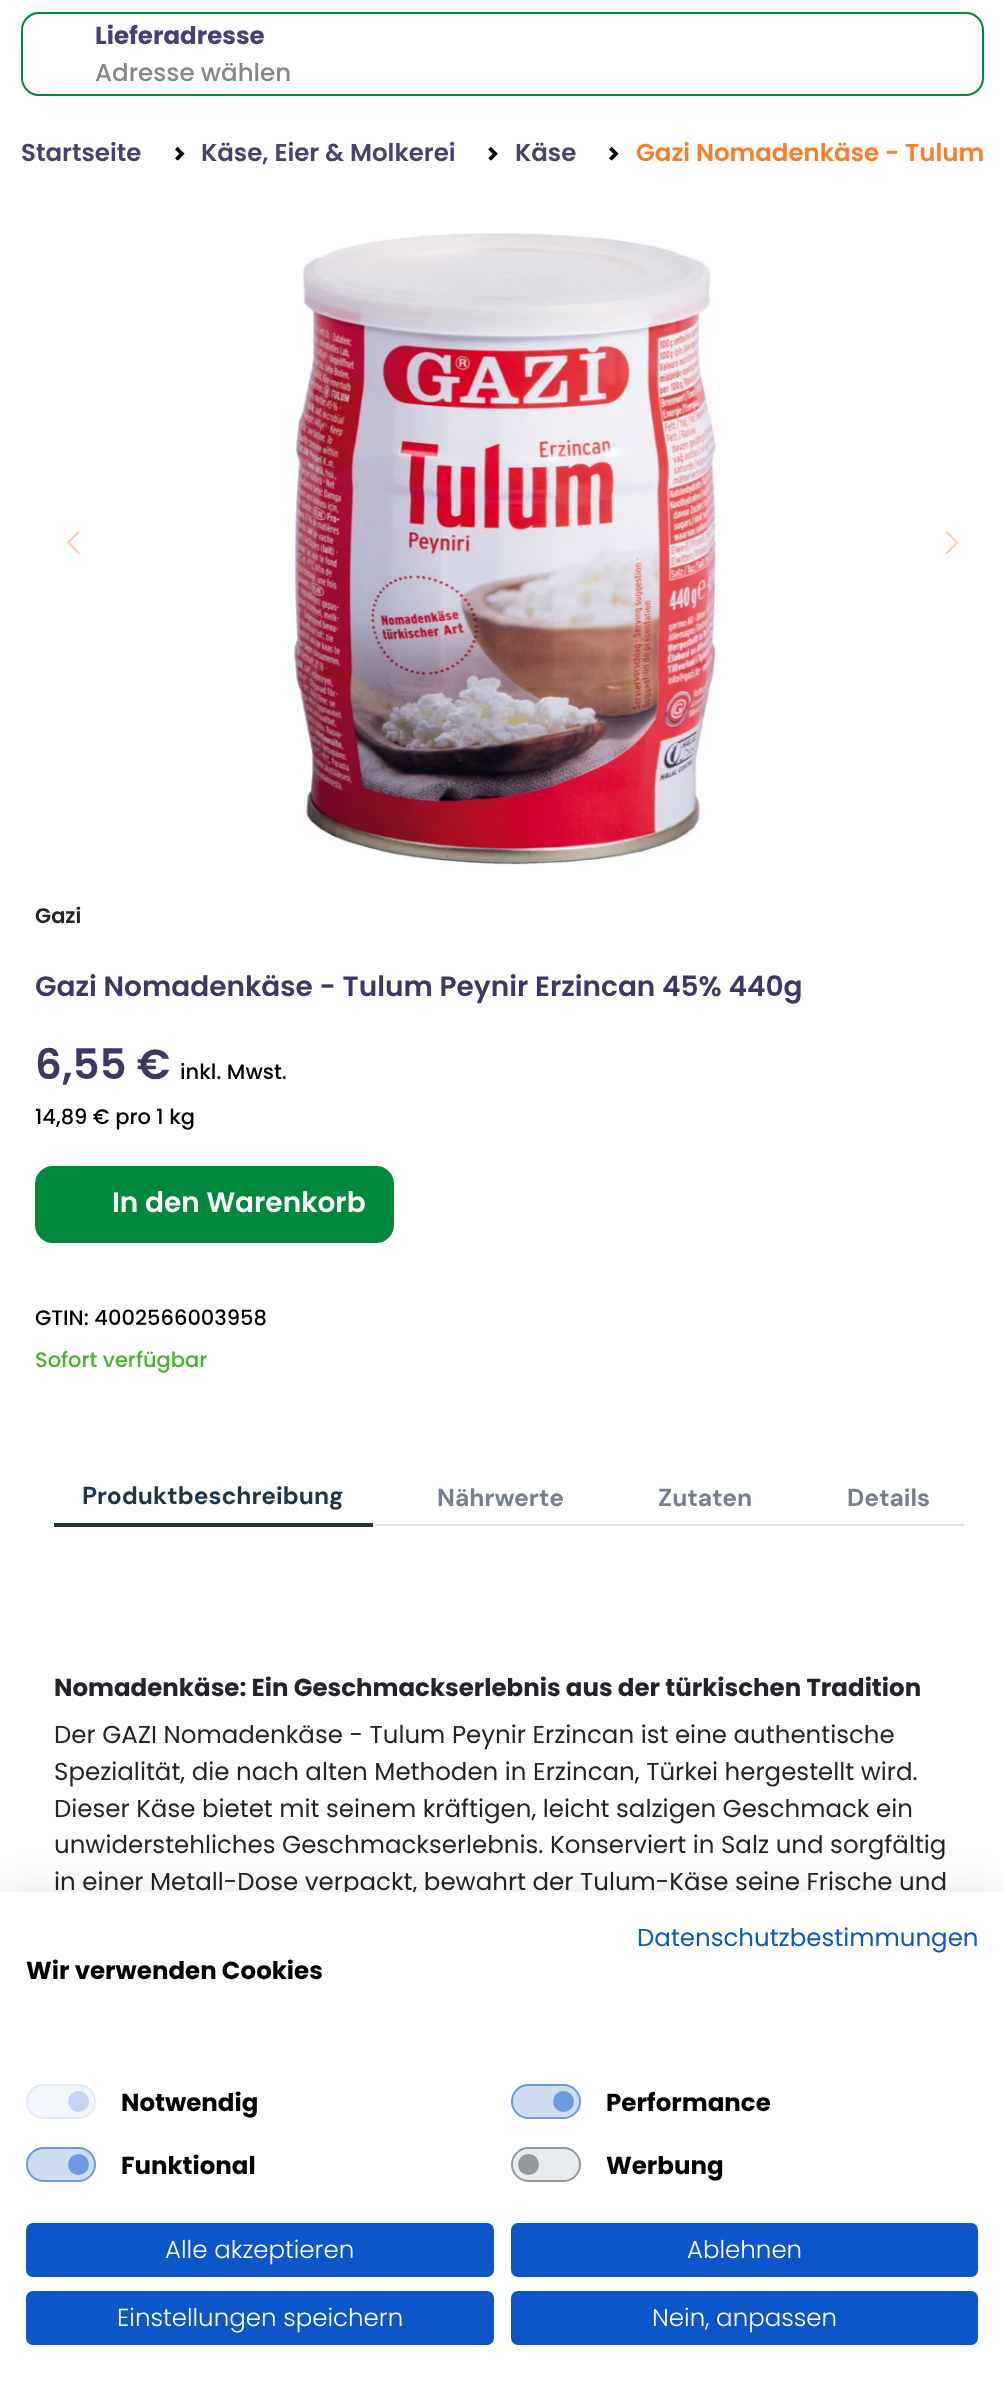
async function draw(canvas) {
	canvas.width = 1004;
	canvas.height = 2391;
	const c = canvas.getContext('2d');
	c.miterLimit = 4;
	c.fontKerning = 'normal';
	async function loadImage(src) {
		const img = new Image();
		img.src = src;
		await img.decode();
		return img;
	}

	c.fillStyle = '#fff';
	c.fillRect(0, 0, 1004, 2391);
	c.beginPath();
	c.roundRect(22, 13, 961, 82, 17);
	c.strokeStyle = '#00883d';
	c.lineWidth = 2;
	c.stroke();
	c.font = 'bold 24.5px Poppins';
	c.fillStyle = '#4b3f72';
	c.fillText('Lieferadresse', 95, 44);
	c.font = '500 24.5px Poppins';
	c.fillStyle = '#878787';
	c.fillText('Adresse wählen', 95, 81);
	c.font = '600 24.5px Poppins';
	c.fillStyle = '#4b3f72';
	c.fillText('Startseite', 21, 161);
	c.drawImage(await loadImage('img1.png'), 175, 147, 10, 14);
	c.fillText('Käse, Eier & Molkerei', 201, 161);
	c.drawImage(await loadImage('img2.png'), 488, 147, 10, 14);
	c.fillText('Käse', 515, 161);
	c.drawImage(await loadImage('img1.png'), 609, 147, 10, 14);
	c.fillStyle = '#fd7d26';
	c.fillText('Gazi Nomadenkäse - Tulum', 636, 161);
	c.drawImage(await loadImage('img3.png'), 67, 531, 13, 23);
	c.drawImage(await loadImage('img4.png'), 291, 232, 427, 634);
	c.drawImage(await loadImage('img5.png'), 946, 531, 13, 23);
	c.font = '600 21px Poppins';
	c.fillStyle = '#232323';
	c.fillText('Gazi', 35, 923);
	c.font = '600 28px Poppins';
	c.fillStyle = '#413663';
	c.fillText('Gazi Nomadenkäse - Tulum Peynir Erzincan 45% 440g', 35, 996);
	c.font = '600 42px Poppins';
	c.fillText('6,55 €', 35, 1079);
	c.font = '500 21px Poppins';
	c.fillStyle = '#000';
	c.fillText('inkl. Mwst.', 180, 1079);
	c.fillText('14,89 € pro 1 kg', 35, 1124);
	c.fillStyle = '#00883d';
	c.beginPath();
	c.roundRect(36, 1167, 357, 75, 17);
	c.fill();
	c.stroke();
	c.font = '600 28px Poppins';
	c.fillStyle = '#fff';
	c.fillText('In den Warenkorb', 112, 1212);
	c.font = '500 21px Poppins';
	c.fillStyle = '#000';
	c.fillText('GTIN: 4002566003958', 35, 1325);
	c.fillStyle = '#42b628';
	c.fillText('Sofort verfügbar', 35, 1367);
	c.fillStyle = '#dee2e6';
	c.fillRect(373, 1524, 591, 2);
	c.fillStyle = '#1f3447';
	c.fillRect(54, 1523, 319, 4);
	c.font = 'bold 24.5px DM Sans';
	c.fillText('Produktbeschreibung', 82, 1504);
	c.fillStyle = '#777e90';
	for (const [text, x, y] of [
		['Nährwerte', 437, 1506],
		['Zutaten', 658, 1506],
		['Details', 847, 1506],
	]) {
		c.fillText(text, x, y);
	}
	c.font = 'bold 24.5px Poppins';
	c.fillStyle = '#212529';
	c.fillText('Nomadenkäse: Ein Geschmackserlebnis aus der türkischen Tradition', 54, 1696);
	c.font = '24.5px Poppins';
	for (const [text, x, y] of [
		['Der GAZI Nomadenkäse - Tulum Peynir Erzincan ist eine authentische', 54, 1743],
		['Spezialität, die nach alten Methoden in Erzincan, Türkei hergestellt wird.', 54, 1780],
		['Dieser Käse bietet mit seinem kräftigen, leicht salzigen Geschmack ein', 54, 1817],
		['unwiderstehliches Geschmackserlebnis. Konserviert in Salz und sorgfältig', 54, 1853],
		['in einer Metall-Dose verpackt, bewahrt der Tulum-Käse seine Frische und', 54, 1890],
	]) {
		c.fillText(text, x, y);
	}
	c.fillStyle = '#0000001a';
	c.filter = 'blur(21px)';
	c.beginPath();
	c.rect(0, 1892, 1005, 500);
	c.fill();
	c.filter = 'none';
	c.fillStyle = '#fff';
	c.fillRect(0, 1892, 1004, 499);
	c.fillStyle = '#0d56c9';
	c.fillText('Datenschutzbestimmungen', 637, 1946);
	c.font = 'bold 24.5px Poppins';
	c.fillStyle = '#000';
	c.fillText('Wir verwenden Cookies', 26, 1979);
	c.fillStyle = '#f3f7fc';
	c.beginPath();
	c.roundRect(26, 2084, 70, 35, 17.5);
	c.fill();
	c.fillStyle = '#c3d5f2';
	c.beginPath();
	c.arc(78.5, 2101.5, 10.5, 0, 2 * Math.PI);
	c.fill();
	c.beginPath();
	c.roundRect(27, 2085, 68, 33, 16.5);
	c.strokeStyle = '#e1eaf8';
	c.stroke();
	c.fillStyle = '#000';
	c.fillText('Notwendig', 121, 2111);
	c.fillStyle = '#cfddf4';
	c.beginPath();
	c.roundRect(511, 2084, 70, 35, 17.5);
	c.fill();
	c.fillStyle = '#6e9adf';
	c.beginPath();
	c.arc(563.5, 2101.5, 10.5, 0, 2 * Math.PI);
	c.fill();
	c.beginPath();
	c.roundRect(512, 2085, 68, 33, 16.5);
	c.strokeStyle = '#0d56c980';
	c.stroke();
	c.fillStyle = '#000';
	c.fillText('Performance', 606, 2111);
	c.fillStyle = '#cfddf4';
	c.beginPath();
	c.roundRect(26, 2147, 70, 35, 17.5);
	c.fill();
	c.fillStyle = '#6e9adf';
	c.beginPath();
	c.arc(78.5, 2164.5, 10.5, 0, 2 * Math.PI);
	c.fill();
	c.beginPath();
	c.roundRect(27, 2148, 68, 33, 16.5);
	c.stroke();
	c.fillStyle = '#000';
	c.fillText('Funktional', 121, 2174);
	c.fillStyle = '#e9ecef';
	c.beginPath();
	c.roundRect(511, 2147, 70, 35, 17.5);
	c.fill();
	c.fillStyle = '#92999f';
	c.beginPath();
	c.arc(528.5, 2164.5, 10.5, 0, 2 * Math.PI);
	c.fill();
	c.beginPath();
	c.roundRect(512, 2148, 68, 33, 16.5);
	c.strokeStyle = '#6c757db3';
	c.stroke();
	c.fillStyle = '#000';
	c.fillText('Werbung', 606, 2174);
	c.fillStyle = '#0d56c9';
	c.beginPath();
	c.roundRect(27, 2224, 466, 52, 6);
	c.fill();
	c.strokeStyle = '#0d56c9';
	c.stroke();
	c.font = '300 24.5px Poppins';
	c.fillStyle = '#fff';
	c.fillText('Alle akzeptieren', 165, 2258);
	c.fillStyle = '#0d56c9';
	c.beginPath();
	c.roundRect(512, 2224, 465, 52, 6);
	c.fill();
	c.stroke();
	c.fillStyle = '#fff';
	c.fillText('Ablehnen', 687, 2258);
	c.fillStyle = '#0d56c9';
	c.beginPath();
	c.roundRect(27, 2292, 466, 52, 6);
	c.fill();
	c.stroke();
	c.fillStyle = '#fff';
	c.fillText('Einstellungen speichern', 117, 2326);
	c.fillStyle = '#0d56c9';
	c.beginPath();
	c.roundRect(512, 2292, 465, 52, 6);
	c.fill();
	c.stroke();
	c.fillStyle = '#fff';
	c.fillText('Nein, anpassen', 652, 2326);
}

draw(document.querySelector('canvas'));
